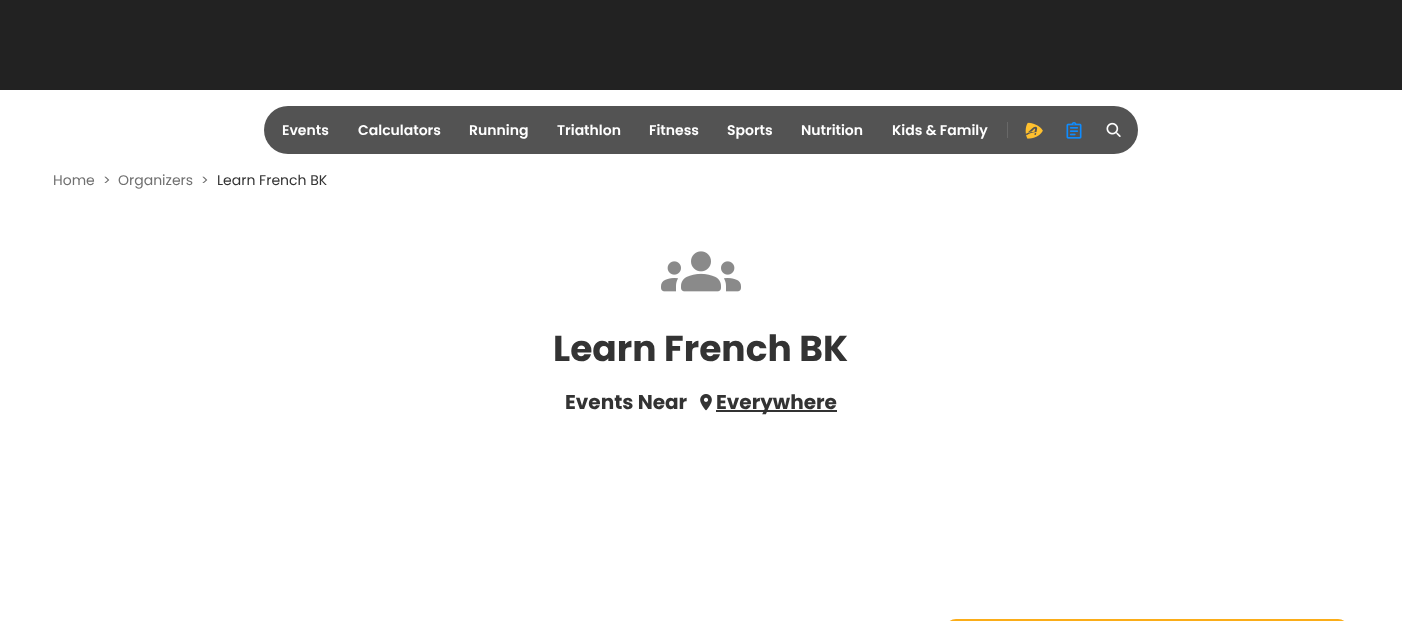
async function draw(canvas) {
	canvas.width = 1402;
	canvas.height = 621;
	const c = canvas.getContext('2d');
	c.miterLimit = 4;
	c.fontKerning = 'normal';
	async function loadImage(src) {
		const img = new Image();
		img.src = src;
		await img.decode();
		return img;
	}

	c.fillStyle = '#fff';
	c.fillRect(0, 0, 1402, 621);
	c.fillStyle = '#222';
	c.fillRect(0, 0, 1402, 90);
	c.fillStyle = '#535353';
	c.beginPath();
	c.roundRect(264, 106, 874, 48, 24);
	c.fill();
	c.font = '600 14px Poppins';
	c.fillStyle = '#fff';
	for (const [text, x, y] of [
		['Events', 282, 135],
		['Calculators', 358, 135],
		['Running', 469, 135],
		['Triathlon', 557, 135],
		['Fitness', 649, 135],
		['Sports', 727, 135],
		['Nutrition', 801, 135],
		['Kids & Family', 892, 135],
	]) {
		c.fillText(text, x, y);
	}
	c.fillStyle = '#686868';
	c.fillRect(1007, 122, 1, 16);
	c.drawImage(await loadImage('img1.png'), 1025, 122, 18, 17);
	c.drawImage(await loadImage('img2.png'), 1066, 122, 16, 17);
	c.drawImage(await loadImage('img3.png'), 1106, 122, 15, 15);
	c.font = '14px Poppins';
	c.fillStyle = '#707070';
	for (const [text, x, y] of [
		['Home', 53, 185],
		['>', 103, 185],
		['Organizers', 118, 185],
		['>', 201, 185],
	]) {
		c.fillText(text, x, y);
	}
	c.fillStyle = '#333';
	c.fillText('Learn French BK', 217, 185);
	c.drawImage(await loadImage('img4.png'), 661, 251, 80, 41);
	c.font = 'bold 36px Poppins';
	c.fillText('Learn French BK', 553, 361);
	c.font = 'bold 20px Poppins';
	c.fillText('Events Near', 565, 409);
	c.drawImage(await loadImage('img5.png'), 700, 394, 12, 17);
	c.fillRect(716, 410, 121, 2);
	c.fillText('Everywhere', 716, 409);
	c.beginPath();
	c.roundRect(947, 621, 400, 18, 14);
	c.strokeStyle = '#fbad18';
	c.lineWidth = 4;
	c.stroke();
}

draw(document.querySelector('canvas'));
